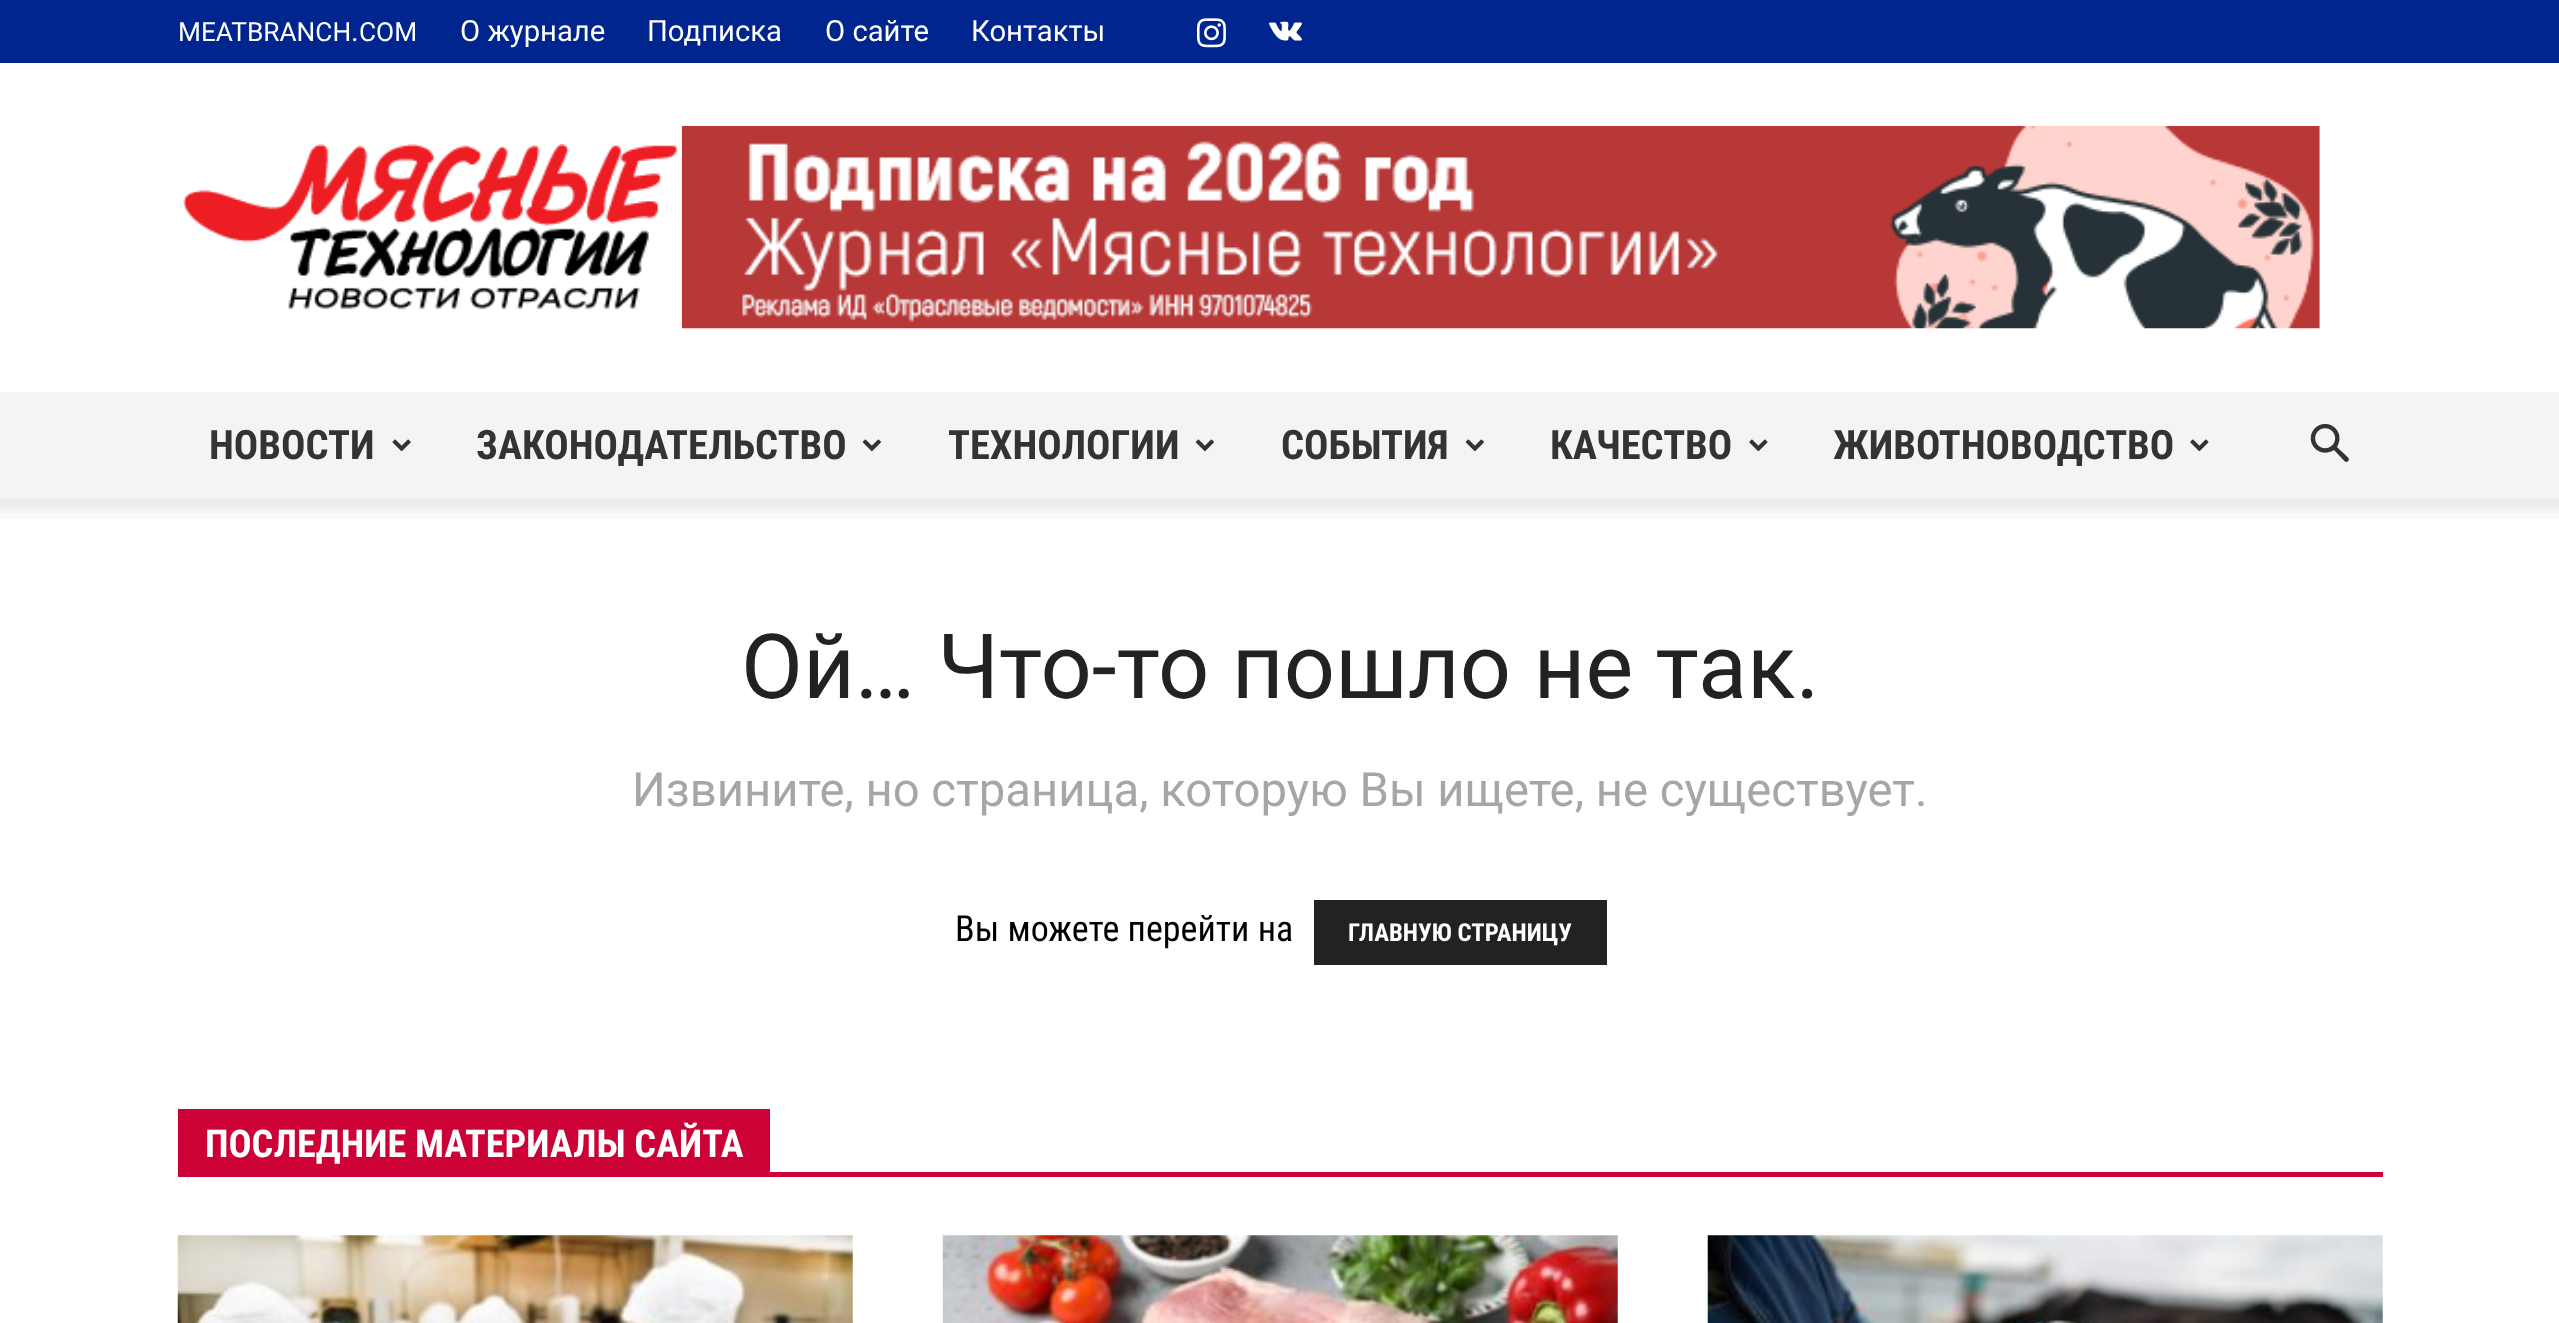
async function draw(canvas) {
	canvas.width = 2559;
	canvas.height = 1323;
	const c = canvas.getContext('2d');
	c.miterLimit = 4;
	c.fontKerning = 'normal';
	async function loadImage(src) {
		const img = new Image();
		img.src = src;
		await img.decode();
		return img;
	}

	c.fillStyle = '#fff';
	c.fillRect(0, 0, 2559, 1323);
	c.fillStyle = '#00258e';
	c.fillRect(0, 0, 2559, 63);
	c.font = '26.25px Roboto';
	c.fillStyle = '#fff';
	c.fillText('MEATBRANCH', 178, 41);
	c.font = '29.25px Roboto';
	c.fillText('.', 351, 41);
	c.font = '26.25px Roboto';
	c.fillText('COM', 359, 41);
	c.font = '29.25px Roboto';
	for (const [text, x, y] of [
		['О журнале', 460, 41],
		['Подписка', 647, 41],
		['О сайте', 825, 41],
		['Контакты', 971, 41],
	]) {
		c.fillText(text, x, y);
	}
	c.drawImage(await loadImage('img1.png'), 1197, 18, 29, 30);
	c.drawImage(await loadImage('img2.png'), 1269, 21, 33, 20);
	c.drawImage(await loadImage('img3.png'), 183, 144, 496, 166);
	c.drawImage(await loadImage('img4.png'), 681, 126, 1639, 203);
	c.fillStyle = '#f4f4f4';
	c.fillRect(0, 392, 2559, 108);
	c.font = 'bold 40.5px Roboto Condensed';
	c.fillStyle = '#333';
	c.fillText('НОВОСТИ', 209, 459);
	c.drawImage(await loadImage('img5.png'), 392, 439, 19, 13);
	c.fillText('ЗАКОНОДАТЕЛЬСТВО', 476, 459);
	c.drawImage(await loadImage('img6.png'), 862, 439, 19, 13);
	c.fillText('ТЕХНОЛОГИИ', 948, 459);
	c.drawImage(await loadImage('img6.png'), 1195, 439, 19, 13);
	c.fillText('СОБЫТИЯ', 1281, 459);
	c.drawImage(await loadImage('img6.png'), 1465, 439, 19, 13);
	c.fillText('КАЧЕСТВО', 1550, 459);
	c.drawImage(await loadImage('img7.png'), 1749, 439, 19, 13);
	c.fillText('ЖИВОТНОВОДСТВО', 1833, 459);
	c.drawImage(await loadImage('img7.png'), 2190, 439, 19, 13);
	c.drawImage(await loadImage('img8.png'), 2310, 423, 39, 39);
	c.drawImage(await loadImage('img9.png'), 0, 499, 2559, 20);
	c.font = '90px Roboto';
	c.fillStyle = '#222';
	c.fillText('Ой… Что-то пошло не так.', 741, 698);
	c.font = '47.25px Roboto';
	c.fillStyle = '#a6a6a6';
	c.fillText('Извините, но страница, которую Вы ищете, не существует.', 632, 806);
	c.font = '36px Roboto Condensed';
	c.fillStyle = '#000';
	c.fillText('Вы можете перейти на', 955, 941);
	c.fillStyle = '#222';
	c.fillRect(1314, 900, 293, 65);
	c.font = 'bold 24.75px Roboto Condensed';
	c.fillStyle = '#fff';
	c.fillText('ГЛАВНУЮ СТРАНИЦУ', 1348, 941);
	c.fillStyle = '#cc0237';
	c.fillRect(178, 1172, 2205, 5);
	c.fillRect(178, 1109, 592, 63);
	c.font = 'bold 38.25px Roboto Condensed';
	c.fillStyle = '#fff';
	c.fillText('ПОСЛЕДНИЕ МАТЕРИАЛЫ САЙТА', 205, 1157);
	c.drawImage(await loadImage('img10.png'), 177, 1235, 676, 88);
	c.drawImage(await loadImage('img11.png'), 942, 1235, 676, 88);
	c.drawImage(await loadImage('img12.png'), 1707, 1235, 676, 88);
}

draw(document.querySelector('canvas'));
